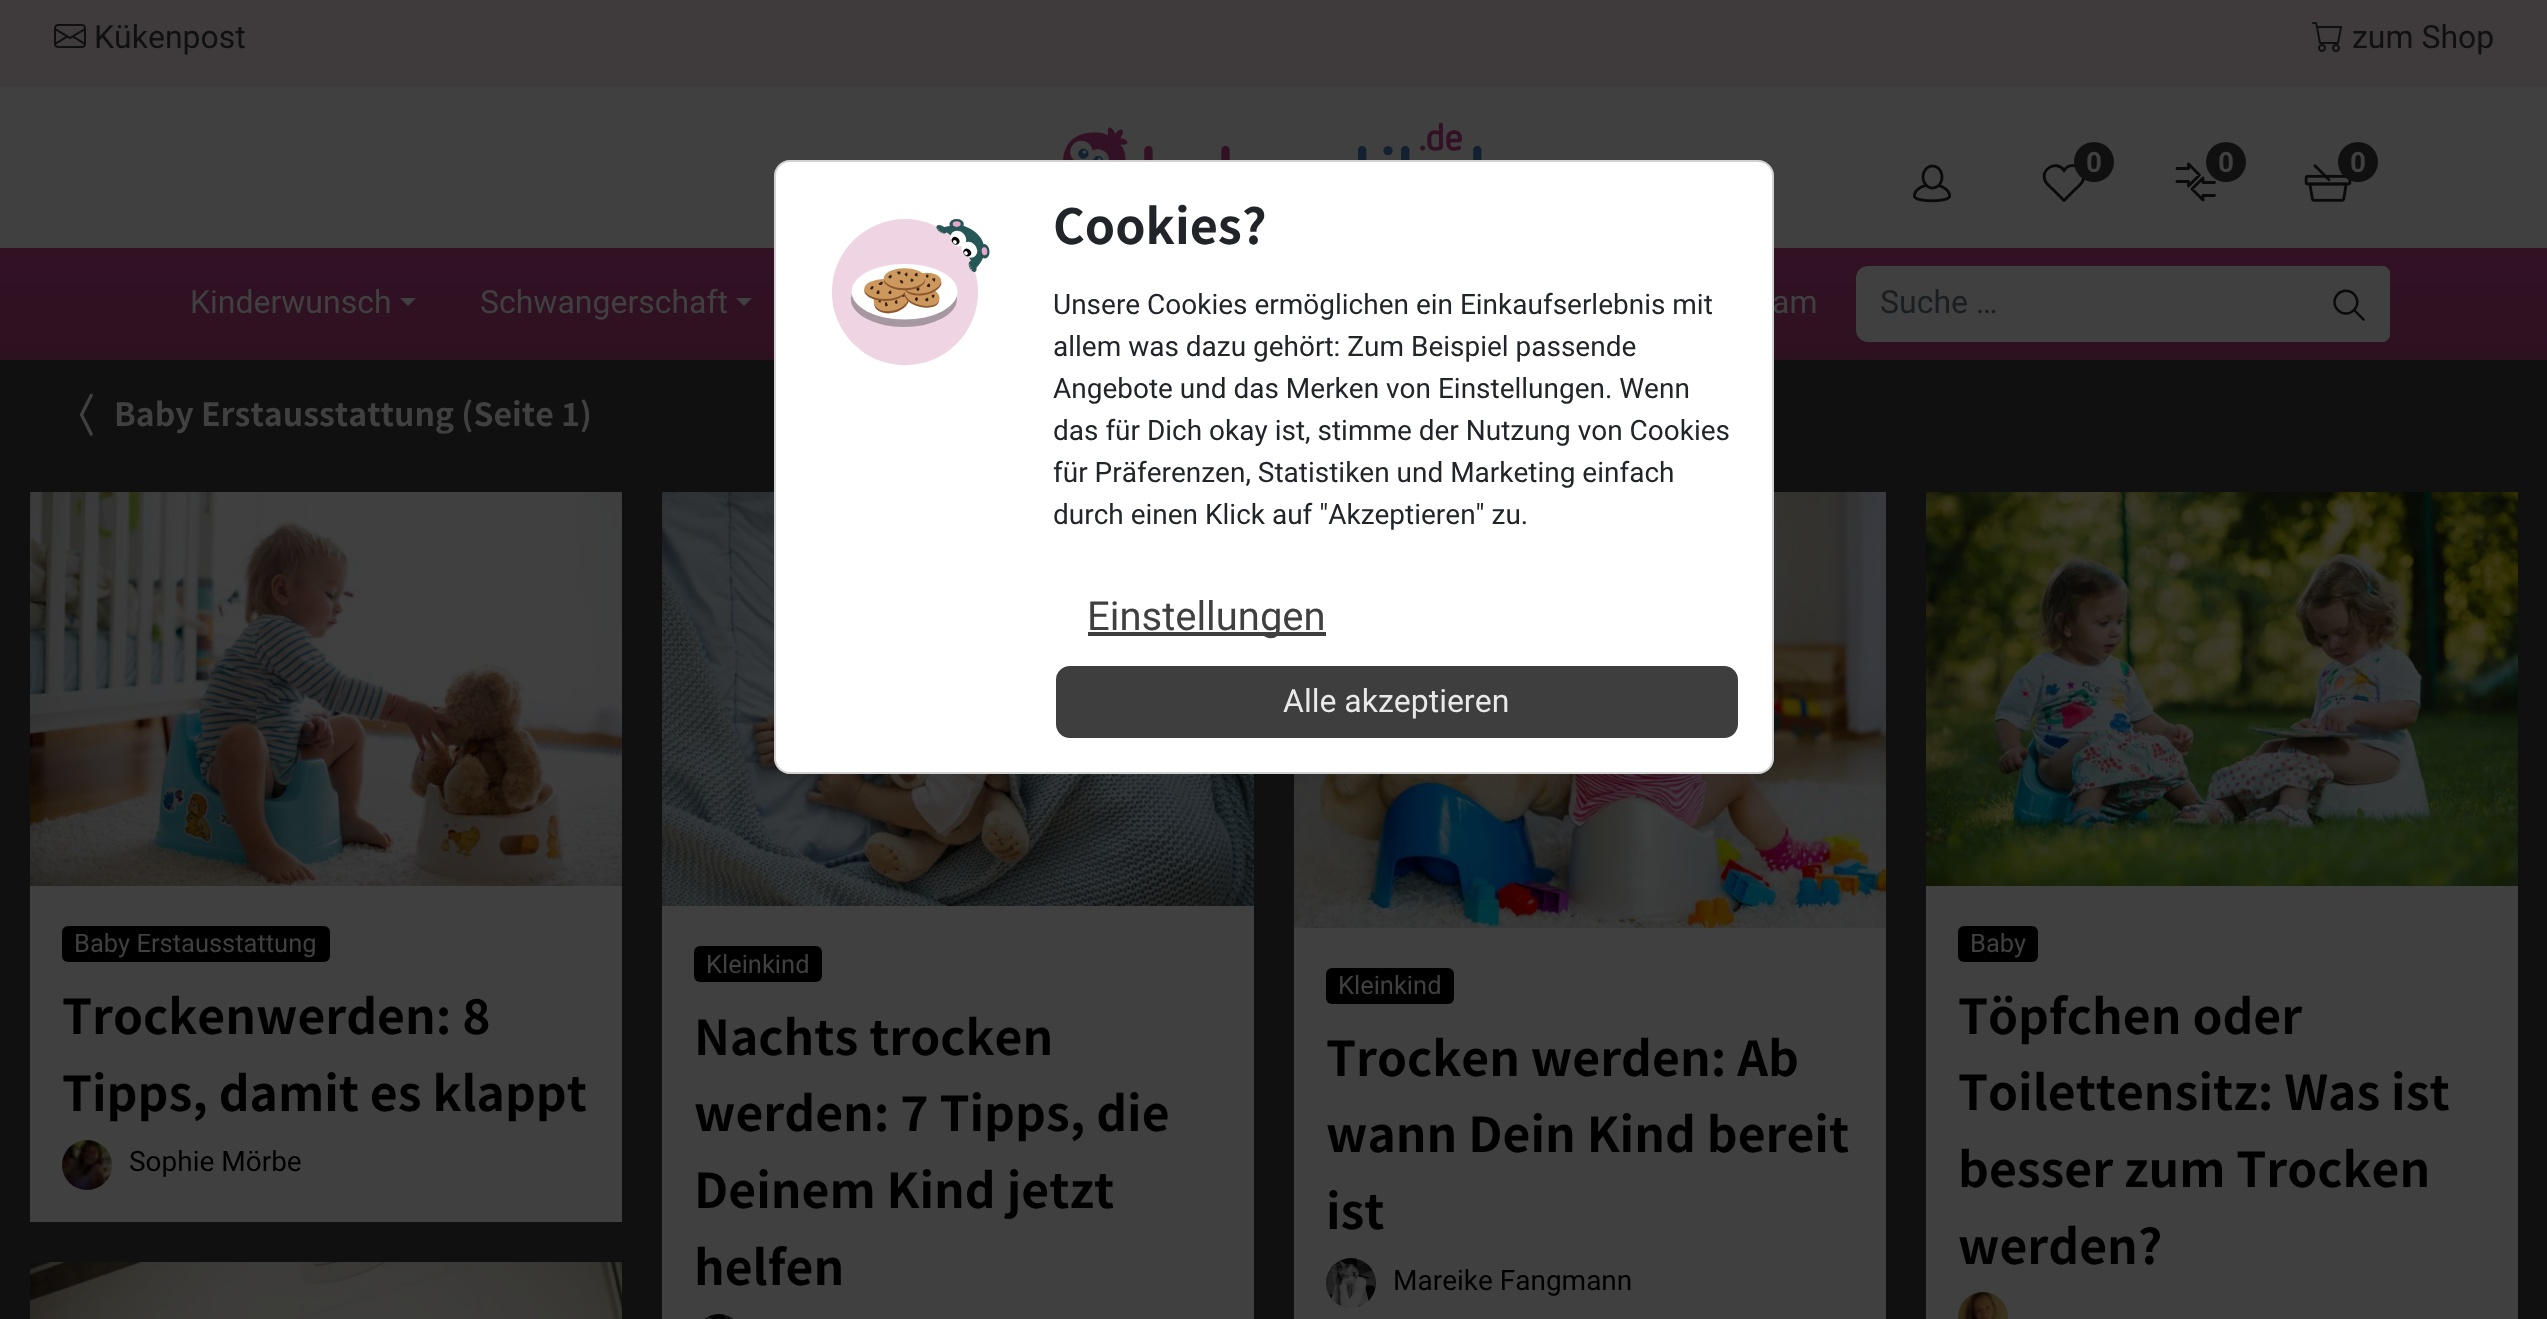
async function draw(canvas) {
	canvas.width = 2547;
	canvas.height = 1319;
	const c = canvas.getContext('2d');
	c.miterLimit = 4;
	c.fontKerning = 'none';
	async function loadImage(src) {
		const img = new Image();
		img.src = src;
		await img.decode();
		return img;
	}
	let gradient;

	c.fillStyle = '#404040';
	c.fillRect(0, 0, 2547, 1319);
	c.fillStyle = '#3f3b3d';
	c.fillRect(0, 0, 2547, 86);
	c.drawImage(await loadImage('img1.png'), 54, 24, 32, 24);
	c.font = '32px Roboto';
	c.fillStyle = '#101010';
	c.fillText('Kükenpost', 94, 48);
	c.drawImage(await loadImage('img2.png'), 2312, 22, 30, 30);
	c.fillText('zum Shop', 2352, 48);
	c.drawImage(await loadImage('img3.png'), 1063, 122, 419, 38);
	c.drawImage(await loadImage('img4.png'), 1913, 164, 38, 39);
	c.beginPath();
	c.moveTo(2064, 200.5);
	c.lineTo(2052.5, 189);
	c.bezierCurveTo(2050, 186.5, 2047, 184.5, 2045.5, 181.5);
	c.bezierCurveTo(2039, 170, 2056.5, 159, 2064, 170.5);
	c.bezierCurveTo(2071.5, 159, 2089, 169.5, 2082.5, 181.5);
	c.bezierCurveTo(2081, 184.5, 2078, 186.5, 2075.5, 189);
	c.lineTo(2064, 200.5);
	c.strokeStyle = '#0a0a0a';
	c.lineWidth = 2.8;
	c.lineCap = 'round';
	c.stroke();
	c.beginPath();
	c.arc(2094, 162, 20, 0, 2 * Math.PI);
	c.fill();
	c.font = 'bold 28px Roboto';
	c.fillStyle = '#404040';
	c.fillText('0', 2086, 172);
	c.beginPath();
	c.moveTo(2177, 168.5);
	c.lineTo(2188.5, 168.5);
	c.lineTo(2188.5, 164);
	c.lineTo(2199.5, 175);
	c.lineTo(2188.5, 186);
	c.lineTo(2188.5, 181.5);
	c.lineTo(2177, 181.5);
	c.moveTo(2214.5, 182.5);
	c.lineTo(2203, 182.5);
	c.lineTo(2203, 178);
	c.lineTo(2192, 189);
	c.lineTo(2203, 200);
	c.lineTo(2203, 195.5);
	c.lineTo(2214.5, 195.5);
	c.lineJoin = 'round';
	c.stroke();
	c.fillStyle = '#101010';
	c.beginPath();
	c.arc(2226, 162, 20, 0, 2 * Math.PI);
	c.fill();
	c.fillStyle = '#404040';
	c.fillText('0', 2218, 172);
	c.drawImage(await loadImage('img5.png'), 2304, 164, 48, 38);
	c.fillStyle = '#101010';
	c.beginPath();
	c.arc(2358, 162, 20, 0, 2 * Math.PI);
	c.fill();
	c.fillStyle = '#404040';
	c.fillText('0', 2350, 172);
	gradient = c.createLinearGradient(1274, 248, 1274, 360);
	gradient.addColorStop(0, '#321124');
	gradient.addColorStop(1, '#2d1121');
	c.fillStyle = gradient;
	c.fillRect(0, 248, 2547, 112);
	c.font = '32px Roboto';
	c.fillStyle = '#404040';
	c.fillText('Kinderwunsch', 190, 313);
	c.beginPath();
	c.moveTo(400, 298);
	c.lineTo(416, 298);
	c.lineTo(408, 306);
	c.closePath();
	c.fill();
	c.fillText('Schwangerschaft', 480, 313);
	c.beginPath();
	c.moveTo(736, 298);
	c.lineTo(752, 298);
	c.lineTo(744, 306);
	c.closePath();
	c.fill();
	c.fillText('am', 1772, 313);
	c.beginPath();
	c.roundRect(2306, 266, 84, 76, [0, 8, 8, 0]);
	c.fill();
	c.drawImage(await loadImage('img6.png'), 2333, 289, 32, 32);
	c.beginPath();
	c.roundRect(2307, 267, 82, 74, [0, 7, 7, 0]);
	c.strokeStyle = '#404040';
	c.lineWidth = 2;
	c.lineJoin = 'miter';
	c.stroke();
	c.beginPath();
	c.roundRect(1856, 266, 452, 76, [12, 0, 0, 12]);
	c.fill();
	c.fillStyle = '#1b1e20';
	c.fillText('Suche …', 1880, 313);
	c.fillStyle = '#101010';
	c.fillRect(0, 360, 2547, 959);
	c.drawImage(await loadImage('img7.png'), 79, 393, 14, 43);
	c.font = 'bold 32px Noto Sans JP';
	c.fillStyle = '#404040';
	c.fillText('Baby Erstausstattung (Seite 1)', 114, 426);
	c.fillRect(30, 886, 592, 336);
	c.drawImage(await loadImage('img8.png'), 30, 492, 592, 394);
	c.fillStyle = '#000';
	c.beginPath();
	c.roundRect(62, 926, 268, 36, 6);
	c.fill();
	c.font = '25.5px Roboto';
	c.fillStyle = '#404040';
	c.fillText('Baby Erstausstattung', 74, 952);
	c.font = 'bold 48px Noto Sans JP';
	c.fillStyle = '#000';
	c.fillText('Trockenwerden: 8', 62, 1034);
	c.fillText('Tipps, damit es klappt', 62, 1111);
	c.drawImage(await loadImage('img9.png'), 62, 1140, 50, 50);
	c.font = '28px Roboto';
	c.fillText('Sophie Mörbe', 129, 1171);
	c.fillStyle = '#404040';
	c.fillRect(662, 906, 592, 413);
	c.drawImage(await loadImage('img10.png'), 662, 492, 592, 414);
	c.fillStyle = '#000';
	c.beginPath();
	c.roundRect(694, 946, 128, 36, 6);
	c.fill();
	c.font = '25.5px Roboto';
	c.fillStyle = '#404040';
	c.fillText('Kleinkind', 706, 973);
	c.font = 'bold 48px Noto Sans JP';
	c.fillStyle = '#000';
	for (const [text, x, y] of [
		['Nachts trocken', 694, 1055],
		['werden: 7 Tipps, die', 694, 1131],
		['Deinem Kind jetzt', 694, 1208],
		['helfen', 694, 1285],
	]) {
		c.fillText(text, x, y);
	}
	c.drawImage(await loadImage('img11.png'), 704, 1314, 30, 5);
	c.fillStyle = '#404040';
	c.fillRect(1294, 928, 592, 391);
	c.drawImage(await loadImage('img12.png'), 1294, 492, 592, 436);
	c.fillStyle = '#000';
	c.beginPath();
	c.roundRect(1326, 968, 128, 36, 6);
	c.fill();
	c.font = '25.5px Roboto';
	c.fillStyle = '#404040';
	c.fillText('Kleinkind', 1338, 994);
	c.font = 'bold 48px Noto Sans JP';
	c.fillStyle = '#000';
	for (const [text, x, y] of [
		['Trocken werden: Ab', 1326, 1076],
		['wann Dein Kind bereit', 1326, 1152],
		['ist', 1326, 1229],
	]) {
		c.fillText(text, x, y);
	}
	c.drawImage(await loadImage('img13.png'), 1326, 1258, 50, 50);
	c.font = '28px Roboto';
	c.fillText('Mareike Fangmann', 1393, 1290);
	c.fillStyle = '#404040';
	c.fillRect(1926, 886, 592, 433);
	c.drawImage(await loadImage('img14.png'), 1926, 492, 592, 394);
	c.fillStyle = '#000';
	c.beginPath();
	c.roundRect(1958, 926, 80, 36, 6);
	c.fill();
	c.font = '25.5px Roboto';
	c.fillStyle = '#404040';
	c.fillText('Baby', 1970, 952);
	c.font = 'bold 48px Noto Sans JP';
	c.fillStyle = '#000';
	for (const [text, x, y] of [
		['Töpfchen oder', 1958, 1034],
		['Toilettensitz: Was ist', 1958, 1110],
		['besser zum Trocken', 1958, 1187],
		['werden?', 1958, 1264],
	]) {
		c.fillText(text, x, y);
	}
	c.drawImage(await loadImage('img15.png'), 1958, 1292, 50, 27);
	c.drawImage(await loadImage('img16.png'), 30, 1262, 592, 57);
	c.fillStyle = '#fff';
	c.beginPath();
	c.roundRect(774, 160, 1000, 614, 16);
	c.fill();
	c.beginPath();
	c.roundRect(775, 161, 998, 612, 15);
	c.strokeStyle = '#0000002e';
	c.stroke();
	c.drawImage(await loadImage('img17.png'), 831, 219, 159, 147);
	c.font = 'bold 48.5px Noto Sans JP';
	c.fillStyle = '#212529';
	c.fillText('Cookies?', 1053, 244);
	c.font = '28px Roboto';
	for (const [text, x, y] of [
		['Unsere Cookies ermöglichen ein Einkaufserlebnis mit', 1053, 314],
		['allem was dazu gehört: Zum Beispiel passende', 1053, 356],
		['Angebote und das Merken von Einstellungen. Wenn', 1053, 398],
		['das für Dich okay ist, stimme der Nutzung von Cookies', 1053, 440],
		['für Präferenzen, Statistiken und Marketing einfach', 1053, 482],
		['durch einen Klick auf "Akzeptieren" zu.', 1053, 524],
	]) {
		c.fillText(text, x, y);
	}
	c.fillStyle = '#3e3e3e';
	c.fillRect(1088, 632, 238, 4);
	c.font = '40px Roboto';
	c.fillStyle = '#404040';
	c.fillText('Einstellungen', 1087, 630);
	c.fillStyle = '#3e3e3e';
	c.beginPath();
	c.roundRect(1055, 665, 684, 74, 15);
	c.fill();
	c.strokeStyle = '#fff';
	c.stroke();
	c.font = '32px Roboto';
	c.fillStyle = '#e9e9e9';
	c.fillText('Alle akzeptieren', 1283, 712);
}

draw(document.querySelector('canvas'));
